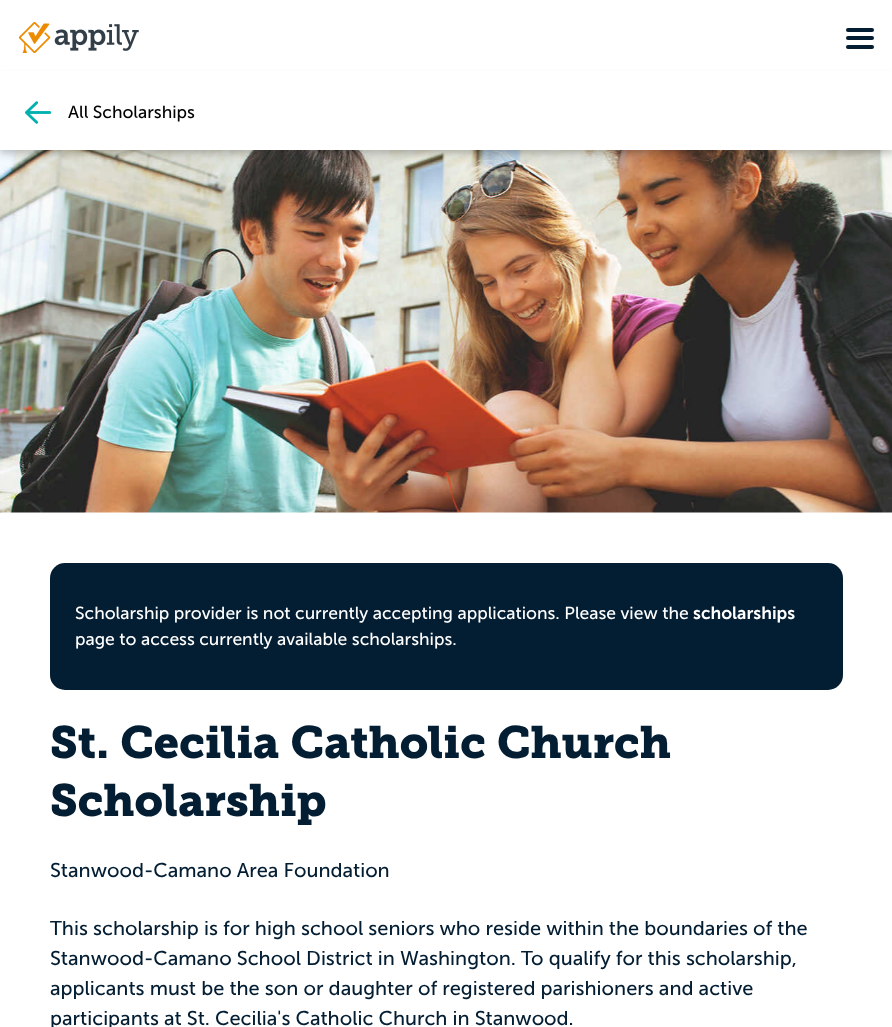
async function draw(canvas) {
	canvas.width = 892;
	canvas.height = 1027;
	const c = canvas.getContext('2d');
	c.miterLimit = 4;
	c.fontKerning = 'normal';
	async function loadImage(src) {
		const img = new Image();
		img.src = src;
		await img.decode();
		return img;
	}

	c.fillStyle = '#fff';
	c.fillRect(0, 0, 892, 1027);
	c.drawImage(await loadImage('img1.png'), 19, 22, 120, 31);
	c.fillStyle = '#031d32';
	c.beginPath();
	c.roundRect(846, 36, 28, 4, 2);
	c.fill();
	c.beginPath();
	c.roundRect(846, 28, 28, 4, 2);
	c.fill();
	c.beginPath();
	c.roundRect(846, 45, 28, 4, 2);
	c.fill();
	c.drawImage(await loadImage('img3.png'), 0, 150, 892, 363);
	c.fillStyle = '#00000040';
	c.filter = 'blur(4px)';
	c.beginPath();
	c.rect(0, 78, 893, 75);
	c.fill();
	c.filter = 'none';
	c.fillStyle = '#fff';
	c.fillRect(0, 71, 892, 79);
	c.drawImage(await loadImage('img2.png'), 25, 101, 27, 23);
	c.font = '17.5px "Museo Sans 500"';
	c.fillStyle = '#000';
	c.fillText('All Scholarships', 68, 118);
	c.fillStyle = '#031d32';
	c.beginPath();
	c.roundRect(50, 563, 793, 127, 15);
	c.fill();
	c.fillStyle = '#fff';
	c.fillText('Scholarship provider is not currently accepting applications. Please view the', 75, 619);
	c.font = '600 17.5px "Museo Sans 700"';
	c.fillText('scholarships', 693, 619);
	c.font = '17.5px "Museo Sans 500"';
	c.fillText('page to access currently available scholarships.', 75, 645);
	c.font = 'bold 45px "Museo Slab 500"';
	c.fillStyle = '#031d32';
	c.fillText('St. Cecilia Catholic Church', 50, 758);
	c.fillText('Scholarship', 50, 816);
	c.font = '20px "Museo Sans 500"';
	for (const [text, x, y] of [
		['Stanwood-Camano Area Foundation', 50, 877],
		['This scholarship is for high school seniors who reside within the boundaries of the', 50, 935],
		['Stanwood-Camano School District in Washington. To qualify for this scholarship,', 50, 965],
		['applicants must be the son or daughter of registered parishioners and active', 50, 995],
		['participants at St. Cecilia\'s Catholic Church in Stanwood.', 50, 1025],
	]) {
		c.fillText(text, x, y);
	}
}

draw(document.querySelector('canvas'));
